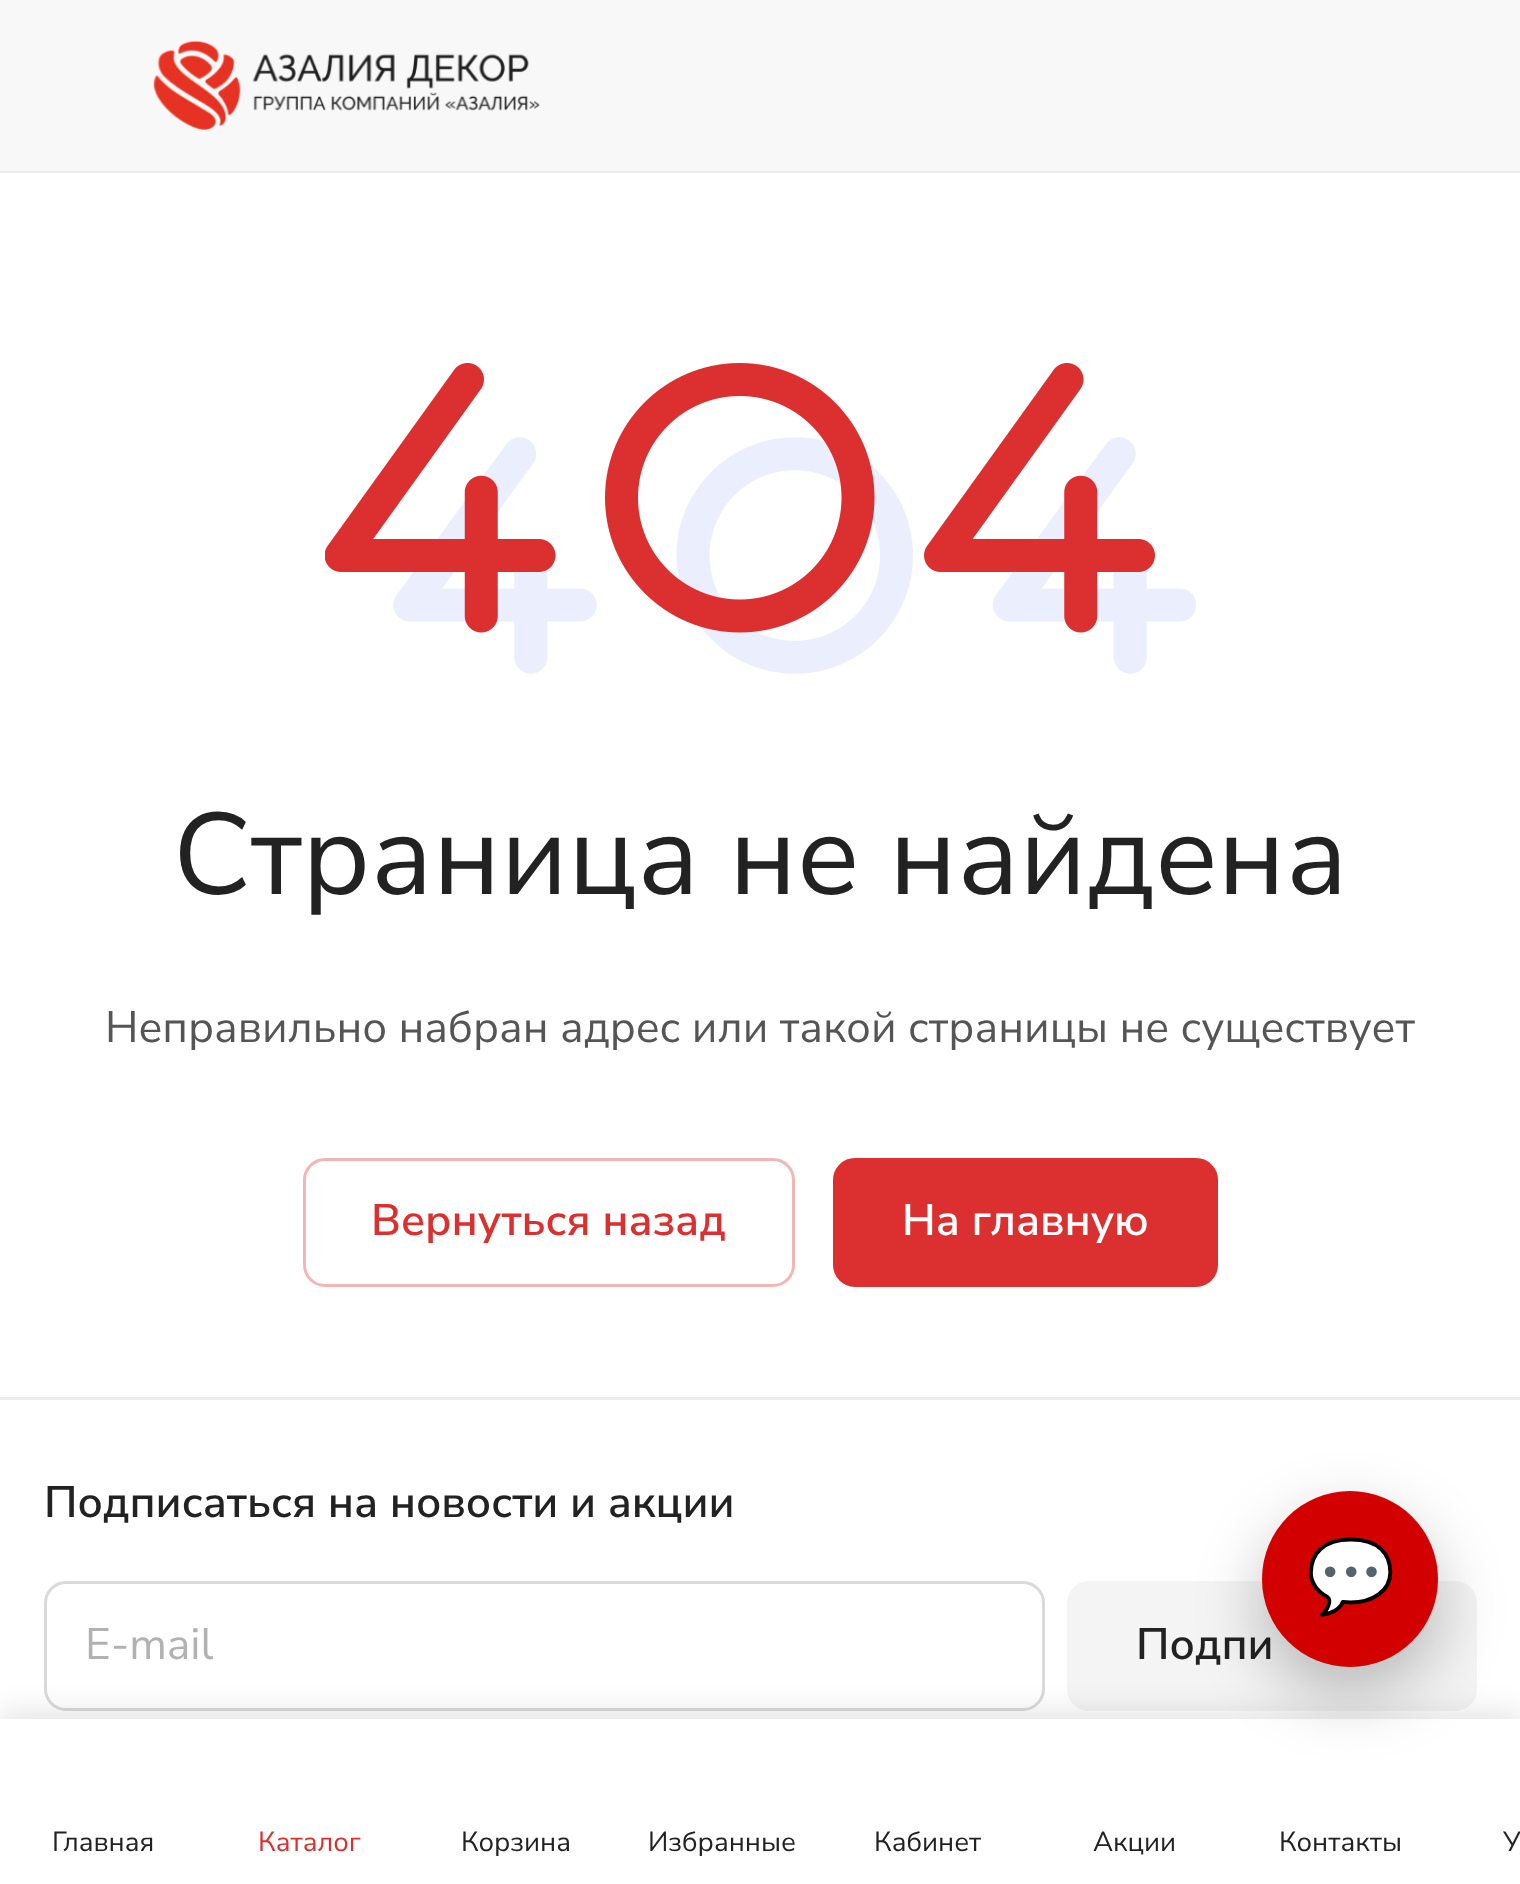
async function draw(canvas) {
	canvas.width = 1520;
	canvas.height = 1884;
	const c = canvas.getContext('2d');
	c.miterLimit = 4;
	c.fontKerning = 'normal';
	async function loadImage(src) {
		const img = new Image();
		img.src = src;
		await img.decode();
		return img;
	}

	c.fillStyle = '#fff';
	c.fillRect(0, 0, 1520, 1884);
	c.fillStyle = '#ededed';
	c.beginPath();
	c.moveTo(0, 170);
	c.lineTo(0, 173);
	c.lineTo(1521, 173);
	c.lineTo(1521, 3);
	c.lineTo(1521, 170);
	c.closePath();
	c.fill();
	c.fillStyle = '#f8f8f8';
	c.fillRect(0, 0, 1520, 171);
	c.drawImage(await loadImage('img1.png'), 153, 40, 387, 90);
	c.drawImage(await loadImage('img2.png'), 325, 363, 871, 311);
	c.font = '115.5px Nunito Sans';
	c.fillStyle = '#222';
	c.fillText('Страница не найдена', 173, 894);
	c.font = '44px Nunito Sans';
	c.fillStyle = '#555';
	c.fillText('Неправильно набран адрес или такой страницы не существует', 105, 1042);
	c.beginPath();
	c.roundRect(304.5, 1159.5, 489, 126, 20.5);
	c.strokeStyle = '#f3b6b6';
	c.lineWidth = 3;
	c.stroke();
	c.font = '600 44px Nunito Sans';
	c.fillStyle = '#dc2f2f';
	c.fillText('Вернуться назад', 371, 1235);
	c.beginPath();
	c.roundRect(834.5, 1159.5, 382, 126, 20.5);
	c.fill();
	c.strokeStyle = '#dc2f2f';
	c.stroke();
	c.fillStyle = '#fff';
	c.fillText('На главную', 902, 1235);
	c.fillStyle = '#ededed';
	c.fillRect(0, 1397, 1520, 3);
	c.fillStyle = '#222';
	c.fillText('Подписаться на новости и акции', 44, 1517);
	c.beginPath();
	c.roundRect(45.5, 1582.5, 998, 127, 20.5);
	c.strokeStyle = '#dadada';
	c.stroke();
	c.font = '44px Nunito Sans';
	c.fillStyle = '#b2b2b2';
	c.fillText('E-mail', 85, 1659);
	c.fillStyle = '#f4f4f4';
	c.beginPath();
	c.roundRect(1068.5, 1582.5, 407, 127, 20.5);
	c.fill();
	c.strokeStyle = '#f4f4f4';
	c.stroke();
	c.font = '600 44px Nunito Sans';
	c.fillStyle = '#222';
	c.fillText('Подпи', 1136, 1659);
	c.fillStyle = '#0000001a';
	c.filter = 'blur(14px)';
	c.beginPath();
	c.rect(0, 1711, 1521, 167);
	c.fill();
	c.filter = 'none';
	c.fillStyle = '#fff';
	c.fillRect(0, 1719, 1520, 165);
	c.fillStyle = '#00000040';
	c.filter = 'blur(33px)';
	c.beginPath();
	c.roundRect(1262, 1518, 176, 176, 88);
	c.fill();
	c.filter = 'none';
	c.fillStyle = '#d30000';
	c.beginPath();
	c.arc(1350, 1579, 88, 0, 2 * Math.PI);
	c.fill();
	c.font = '72px Noto Color Emoji';
	c.fillStyle = '#fff';
	c.fillText('💬', 1306, 1601);
	c.font = '27.5px Nunito Sans';
	c.fillStyle = '#222';
	c.fillText('Главная', 52, 1851);
	c.fillStyle = '#dc2f2f';
	c.fillText('Каталог', 258, 1851);
	c.fillStyle = '#222';
	for (const [text, x, y] of [
		['Корзина', 461, 1851],
		['Избранные', 648, 1851],
		['Кабинет', 874, 1851],
		['Акции', 1093, 1851],
		['Контакты', 1279, 1851],
		['У', 1503, 1851],
	]) {
		c.fillText(text, x, y);
	}
}

draw(document.querySelector('canvas'));
